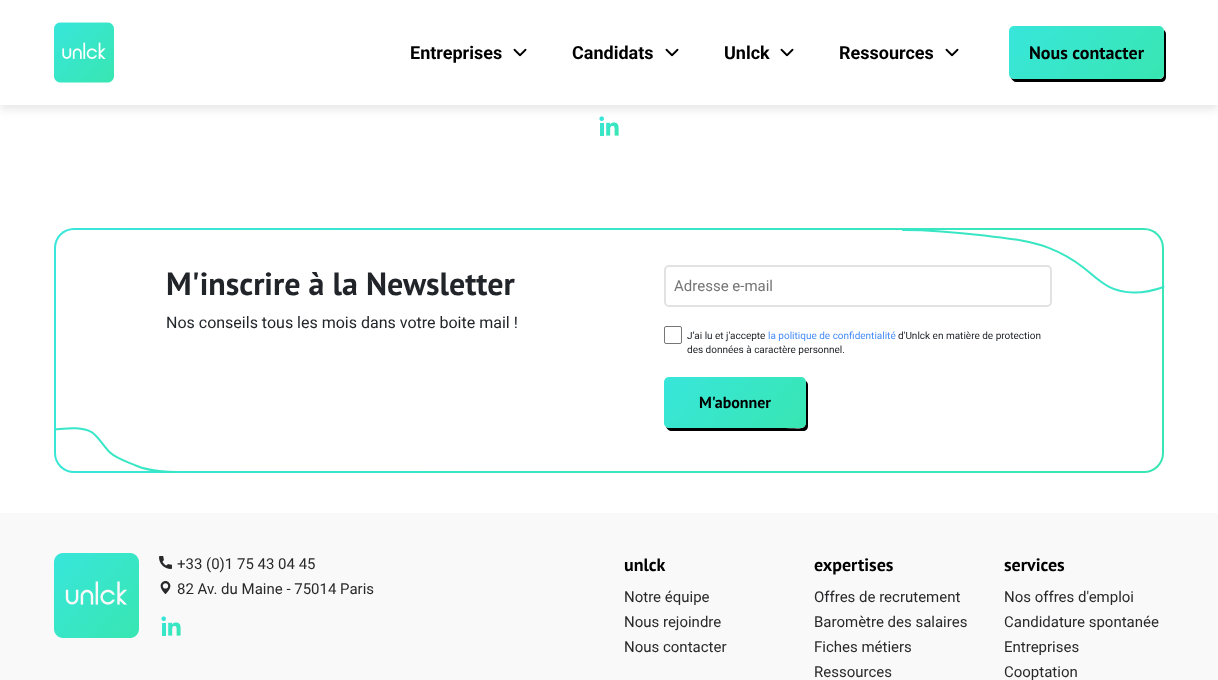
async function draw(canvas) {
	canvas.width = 1218;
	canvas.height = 680;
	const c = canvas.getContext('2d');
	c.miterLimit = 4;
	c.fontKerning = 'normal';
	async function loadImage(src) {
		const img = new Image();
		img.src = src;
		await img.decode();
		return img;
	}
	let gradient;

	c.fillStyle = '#fff';
	c.fillRect(0, 0, 1218, 680);
	c.drawImage(await loadImage('img3.png'), 599, 116, 20, 20);
	c.fillStyle = '#0000001a';
	c.filter = 'blur(5px)';
	c.beginPath();
	c.rect(0, 4, 1218, 105);
	c.fill();
	c.filter = 'none';
	c.fillStyle = '#fff';
	c.fillRect(0, 0, 1218, 105);
	c.drawImage(await loadImage('img1.png'), 54, 22, 60, 61);
	c.font = 'bold 18px Roboto';
	c.fillStyle = '#000';
	c.fillText('Entreprises', 410, 59);
	c.drawImage(await loadImage('img2.png'), 513, 48, 14, 9);
	c.fillText('Candidats', 572, 59);
	c.drawImage(await loadImage('img2.png'), 665, 48, 14, 9);
	c.fillText('Unlck', 724, 59);
	c.drawImage(await loadImage('img2.png'), 780, 48, 14, 9);
	c.fillText('Ressources', 839, 59);
	c.drawImage(await loadImage('img2.png'), 945, 48, 14, 9);
	c.beginPath();
	c.moveTo(1011, 78);
	c.bezierCurveTo(1012, 80, 1014, 82, 1016, 82);
	c.lineTo(1161, 82);
	c.bezierCurveTo(1164, 82, 1166, 80, 1166, 77);
	c.lineTo(1166, 34);
	c.bezierCurveTo(1166, 32, 1165, 31, 1164, 30);
	c.lineTo(1164, 74);
	c.bezierCurveTo(1164, 77, 1162, 79, 1159, 79);
	c.lineTo(1014, 79);
	c.closePath();
	c.fill();
	gradient = c.createLinearGradient(1031, 1.9, 1142, 103);
	gradient.addColorStop(0.03, '#38e6da');
	gradient.addColorStop(0.97, '#38e6b3');
	c.fillStyle = gradient;
	c.beginPath();
	c.roundRect(1009, 26, 155, 53, 5);
	c.fill();
	c.font = 'bold 18px PT Sans';
	c.fillStyle = '#000';
	c.fillText('Nous contacter', 1029, 59);
	gradient = c.createLinearGradient(245, 19, 973, 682);
	gradient.addColorStop(0.03, '#38e6da');
	gradient.addColorStop(0.97, '#38e6b3');
	c.fillStyle = gradient;
	c.beginPath();
	c.roundRect(54, 228, 1110, 245, 20);
	c.fill();
	c.fillStyle = '#fff';
	c.beginPath();
	c.roundRect(56, 230, 1106, 241, 18);
	c.fill();
	c.beginPath();
	c.roundRect(665, 266, 386, 40, 4);
	c.strokeStyle = '#e2e2e2';
	c.lineWidth = 2;
	c.stroke();
	c.drawImage(await loadImage('img4.png'), 902, 229, 263, 65);
	c.font = 'bold 32px PT Sans';
	c.fillStyle = '#212529';
	c.fillText('M\'inscrire à la Newsletter', 166, 295);
	c.font = '16px Roboto';
	c.fillText('Nos conseils tous les mois dans votre boite mail !', 166, 328);
	c.font = '15px Roboto';
	c.fillStyle = '#757575';
	c.fillText('Adresse e-mail', 674, 291);
	c.beginPath();
	c.roundRect(664.5, 326.5, 17, 17, 1.5);
	c.strokeStyle = '#767676';
	c.lineWidth = 1;
	c.stroke();
	c.font = '10px Roboto';
	c.fillStyle = '#212529';
	c.fillText('J’ai lu et j\'accepte', 687, 339);
	c.fillStyle = '#468cf7';
	c.fillText('la politique de confidentialité', 768, 339);
	c.fillStyle = '#212529';
	c.fillText('d\'Unlck en matière de protection', 898, 339);
	c.fillText('des données à caractère personnel.', 687, 353);
	c.fillStyle = '#000';
	c.beginPath();
	c.moveTo(666, 427);
	c.bezierCurveTo(667, 429, 669, 431, 671, 431);
	c.lineTo(803, 431);
	c.bezierCurveTo(806, 431, 808, 429, 808, 426);
	c.lineTo(808, 385);
	c.bezierCurveTo(808, 383, 807, 382, 806, 381);
	c.lineTo(806, 409);
	c.bezierCurveTo(806, 433, 808, 428, 779, 428);
	c.lineTo(669, 428);
	c.closePath();
	c.fill();
	gradient = c.createLinearGradient(683, 356, 787, 449);
	gradient.addColorStop(0.03, '#38e6da');
	gradient.addColorStop(0.97, '#38e6b3');
	c.fillStyle = gradient;
	c.beginPath();
	c.roundRect(664, 377, 142, 51, 5);
	c.fill();
	c.font = 'bold 16px PT Sans';
	c.fillStyle = '#000';
	c.fillText('M\'abonner', 699, 408);
	c.drawImage(await loadImage('img5.png'), 55, 427, 122, 46);
	c.fillStyle = '#faf9f9';
	c.fillRect(0, 513, 1218, 167);
	c.drawImage(await loadImage('img6.png'), 54, 553, 85, 85);
	c.drawImage(await loadImage('img7.png'), 159, 556, 13, 13);
	c.font = '15px "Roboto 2"';
	c.fillStyle = '#29282a';
	c.fillText('+33 (0)1 75 43 04 45', 177, 569);
	c.drawImage(await loadImage('img8.png'), 160, 581, 11, 13);
	c.fillText('82 Av. du Maine - 75014 Paris', 177, 594);
	c.drawImage(await loadImage('img9.png'), 161, 616, 20, 20);
	c.font = 'bold 18px PT Sans';
	c.fillStyle = '#000';
	c.fillText('unlck', 624, 571);
	c.font = '15px "Roboto 2"';
	c.fillStyle = '#29282a';
	for (const [text, x, y] of [
		['Notre équipe', 624, 602],
		['Nous rejoindre', 624, 627],
		['Nous contacter', 624, 652],
	]) {
		c.fillText(text, x, y);
	}
	c.font = 'bold 18px PT Sans';
	c.fillStyle = '#000';
	c.fillText('expertises', 814, 571);
	c.font = '15px "Roboto 2"';
	c.fillStyle = '#29282a';
	for (const [text, x, y] of [
		['Offres de recrutement', 814, 602],
		['Baromètre des salaires', 814, 627],
		['Fiches métiers', 814, 652],
		['Ressources', 814, 677],
	]) {
		c.fillText(text, x, y);
	}
	c.font = 'bold 18px PT Sans';
	c.fillStyle = '#000';
	c.fillText('services', 1004, 571);
	c.font = '15px "Roboto 2"';
	c.fillStyle = '#29282a';
	for (const [text, x, y] of [
		['Nos offres d\'emploi', 1004, 602],
		['Candidature spontanée', 1004, 627],
		['Entreprises', 1004, 652],
		['Cooptation', 1004, 677],
	]) {
		c.fillText(text, x, y);
	}
}

draw(document.querySelector('canvas'));
